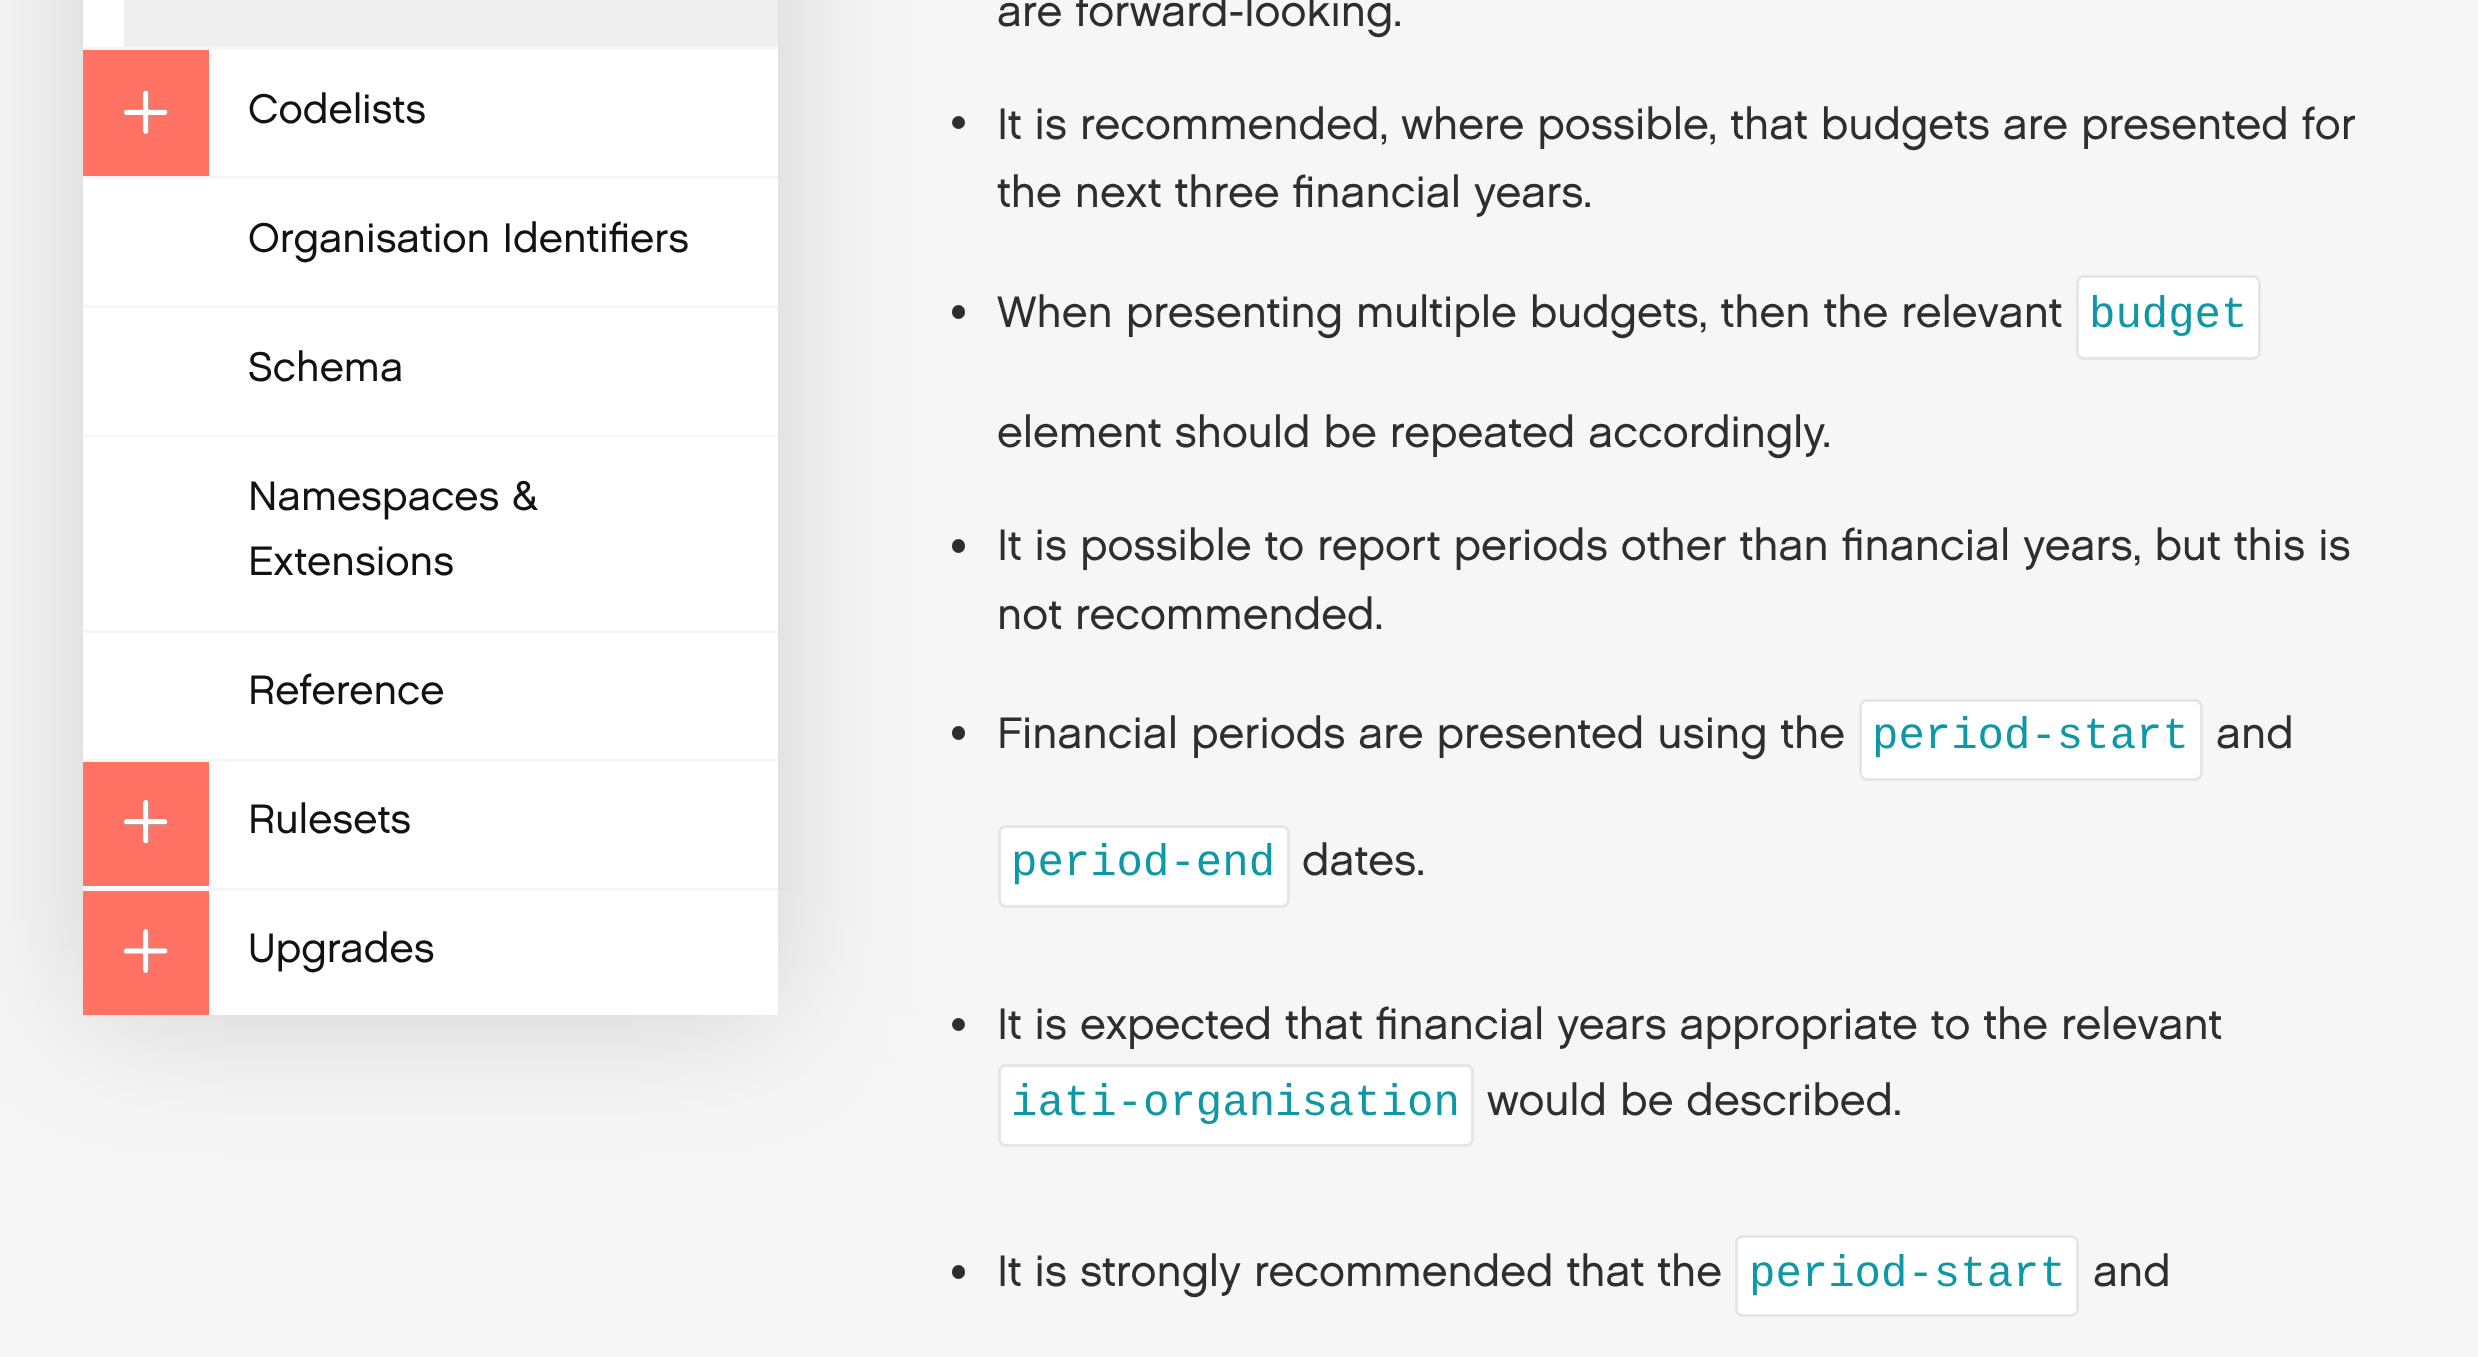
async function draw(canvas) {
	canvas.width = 2478;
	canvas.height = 1357;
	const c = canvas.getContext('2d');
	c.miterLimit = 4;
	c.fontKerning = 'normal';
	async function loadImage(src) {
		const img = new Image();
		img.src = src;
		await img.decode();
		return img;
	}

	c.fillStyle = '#f6f6f6';
	c.fillRect(0, 0, 2478, 1357);
	c.save();
	c.beginPath();
	c.moveTo(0, 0);
	c.lineTo(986, 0);
	c.lineTo(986, 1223);
	c.lineTo(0, 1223);
	c.closePath();
	c.moveTo(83, -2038);
	c.lineTo(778, -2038);
	c.lineTo(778, 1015);
	c.lineTo(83, 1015);
	c.closePath();
	c.clip('evenodd');
	c.fillStyle = '#00000026';
	c.filter = 'blur(69px)';
	c.beginPath();
	c.rect(83, -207, 695, 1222);
	c.fill();
	c.filter = 'none';
	c.restore();
	for (const [x, y, w, h, color] of [
		[83, 0, 41, 47, '#fff'],
		[124, 0, 654, 47, '#efefef'],
		[83, 50, 126, 126, '#ff7264'],
	]) {
		c.fillStyle = color;
		c.fillRect(x, y, w, h);
	}
	c.drawImage(await loadImage('img1.png'), 124, 90, 44, 44);
	c.fillStyle = '#fff';
	c.fillRect(209, 50, 569, 126);
	c.font = '500 41.25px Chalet';
	c.fillStyle = '#121212';
	c.fillText('Codelists', 248, 123);
	c.fillStyle = '#fff';
	c.fillRect(83, 179, 695, 126);
	c.fillStyle = '#121212';
	c.fillText('Organisation Identifiers', 248, 252);
	c.fillStyle = '#fff';
	c.fillRect(83, 308, 695, 127);
	c.fillStyle = '#121212';
	c.fillText('Schema', 248, 381);
	c.fillStyle = '#fff';
	c.fillRect(83, 437, 695, 193);
	c.fillStyle = '#121212';
	c.fillText('Namespaces &', 248, 510);
	c.fillText('Extensions', 248, 575);
	c.fillStyle = '#fff';
	c.fillRect(83, 633, 695, 126);
	c.fillStyle = '#121212';
	c.fillText('Reference', 248, 704);
	c.fillStyle = '#fff';
	c.fillRect(83, 762, 695, 126);
	c.fillStyle = '#ff7264';
	c.fillRect(83, 762, 126, 124);
	c.drawImage(await loadImage('img2.png'), 124, 800, 44, 44);
	c.fillStyle = '#121212';
	c.fillText('Rulesets', 248, 833);
	c.fillStyle = '#ff7264';
	c.fillRect(83, 891, 126, 124);
	c.drawImage(await loadImage('img3.png'), 124, 929, 44, 44);
	c.fillStyle = '#fff';
	c.fillRect(209, 891, 569, 124);
	c.fillStyle = '#121212';
	c.fillText('Upgrades', 248, 962);
	c.font = '500 44px Chalet';
	c.fillStyle = '#2e2e2e';
	c.fillText('are forward-looking.', 997, 26);
	c.beginPath();
	c.arc(958.5, 122.5, 6.5, 0, 2 * Math.PI);
	c.fill();
	c.fillText('It is recommended, where possible, that budgets are presented for', 997, 139);
	c.fillText('the next three financial years.', 997, 207);
	c.beginPath();
	c.roundRect(952, 305, 13, 14, 6.5);
	c.fill();
	c.fillText('When presenting multiple budgets, then the relevant', 997, 327);
	c.fillStyle = '#fff';
	c.beginPath();
	c.roundRect(2077.5, 276.5, 182, 82, 6.5);
	c.fill();
	c.strokeStyle = '#e6e6e6';
	c.lineWidth = 3;
	c.stroke();
	c.font = '44px Liberation Mono';
	c.fillStyle = '#0e97a5';
	c.fillText('budget', 2089, 327);
	c.font = '500 44px Chalet';
	c.fillStyle = '#2e2e2e';
	c.fillText('element should be repeated accordingly.', 997, 447);
	c.beginPath();
	c.roundRect(952, 539, 13, 14, 6.5);
	c.fill();
	c.fillText('It is possible to report periods other than financial years, but this is', 997, 560);
	c.fillText('not recommended.', 997, 629);
	c.beginPath();
	c.roundRect(952, 726, 13, 14, 6.5);
	c.fill();
	c.fillText('Financial periods are presented using the', 997, 748);
	c.fillStyle = '#fff';
	c.beginPath();
	c.roundRect(1860.5, 700.5, 341, 79, 6.5);
	c.fill();
	c.stroke();
	c.font = '44px Liberation Mono';
	c.fillStyle = '#0e97a5';
	c.fillText('period-start', 1872, 748);
	c.font = '500 44px Chalet';
	c.fillStyle = '#2e2e2e';
	c.fillText('and', 2216, 748);
	c.fillStyle = '#fff';
	c.beginPath();
	c.roundRect(999.5, 826.5, 289, 80, 6.5);
	c.fill();
	c.stroke();
	c.font = '44px Liberation Mono';
	c.fillStyle = '#0e97a5';
	c.fillText('period-end', 1011, 875);
	c.font = '500 44px Chalet';
	c.fillStyle = '#2e2e2e';
	c.fillText('dates.', 1302, 875);
	c.beginPath();
	c.arc(958.5, 1024.5, 6.5, 0, 2 * Math.PI);
	c.fill();
	c.fillText('It is expected that financial years appropriate to the relevant', 997, 1039);
	c.fillStyle = '#fff';
	c.beginPath();
	c.roundRect(999.5, 1065.5, 473, 80, 6.5);
	c.fill();
	c.stroke();
	c.font = '44px Liberation Mono';
	c.fillStyle = '#0e97a5';
	c.fillText('iati-organisation', 1011, 1115);
	c.font = '500 44px Chalet';
	c.fillStyle = '#2e2e2e';
	c.fillText('would be described.', 1487, 1115);
	c.beginPath();
	c.roundRect(952, 1265, 13, 14, 6.5);
	c.fill();
	c.fillText('It is strongly recommended that the', 997, 1286);
	c.fillStyle = '#fff';
	c.beginPath();
	c.roundRect(1736.5, 1236.5, 341, 79, 6.5);
	c.fill();
	c.stroke();
	c.font = '44px Liberation Mono';
	c.fillStyle = '#0e97a5';
	c.fillText('period-start', 1749, 1286);
	c.font = '500 44px Chalet';
	c.fillStyle = '#2e2e2e';
	c.fillText('and', 2093, 1286);
}

draw(document.querySelector('canvas'));
